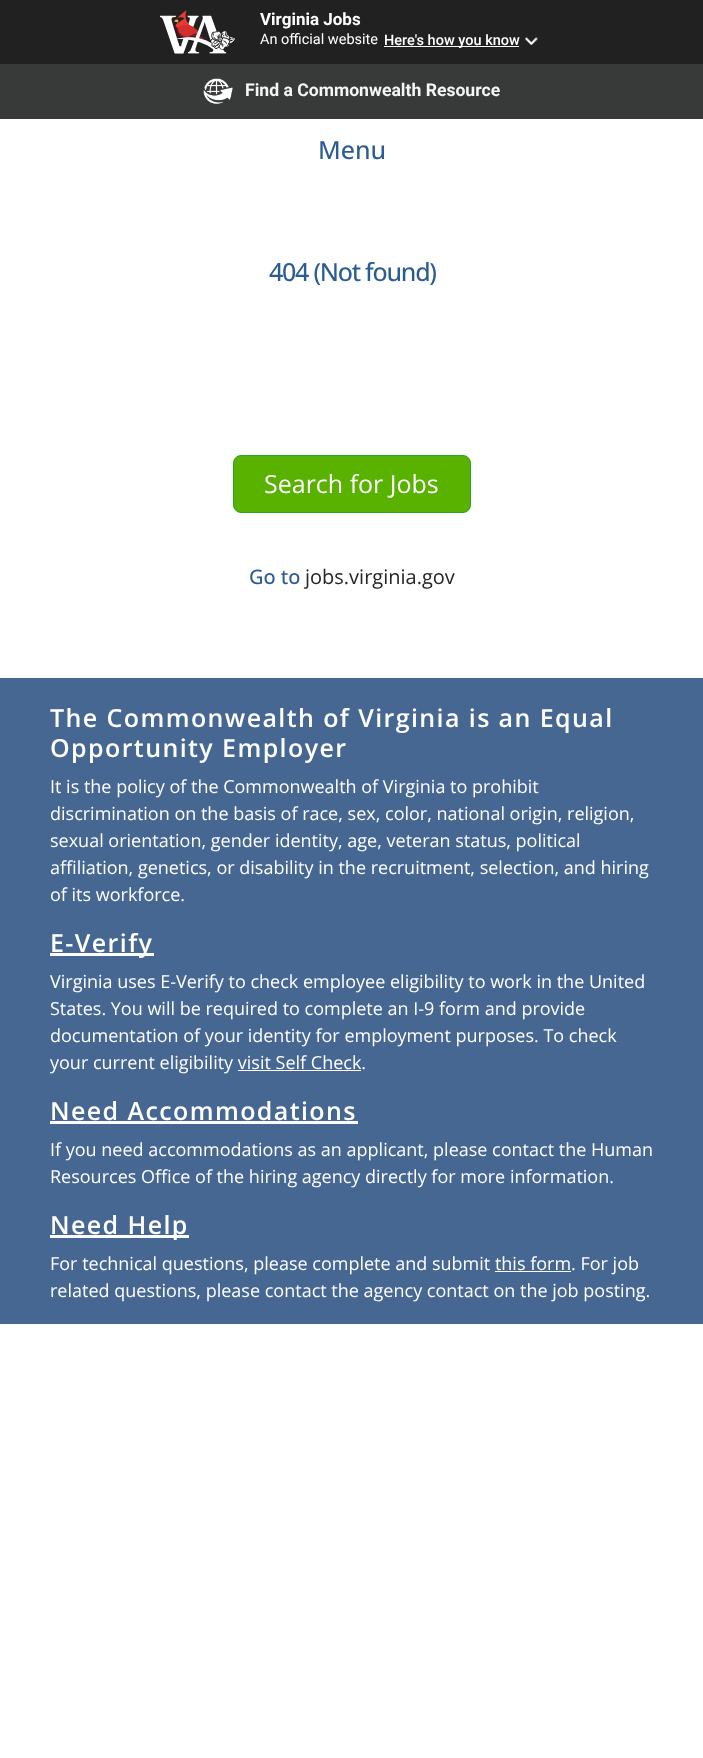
async function draw(canvas) {
	canvas.width = 703;
	canvas.height = 1758;
	const c = canvas.getContext('2d');
	c.miterLimit = 4;
	c.fontKerning = 'normal';
	async function loadImage(src) {
		const img = new Image();
		img.src = src;
		await img.decode();
		return img;
	}

	c.fillStyle = '#fff';
	c.fillRect(0, 0, 703, 1758);
	c.fillStyle = '#212121';
	c.fillRect(0, 0, 703, 64);
	c.drawImage(await loadImage('img1.png'), 160, 10, 75, 44);
	c.font = 'bold 17px Roboto';
	c.fillStyle = '#fff';
	c.fillText('Virginia Jobs', 260, 25);
	c.font = '14.5px Roboto';
	c.fillText('An official website', 260, 44);
	c.fillRect(384, 46, 135, 1);
	c.font = '500 14.5px Roboto';
	c.fillText('Here\'s how you know', 384, 45);
	c.drawImage(await loadImage('img2.png'), 525, 37, 13, 8);
	c.fillStyle = '#383939';
	c.fillRect(0, 64, 703, 55);
	c.drawImage(await loadImage('img3.png'), 203, 78, 30, 26);
	c.font = 'bold 17.6px Roboto';
	c.fillStyle = '#f6f6f6';
	c.fillText('Find a Commonwealth Resource', 245, 96);
	c.font = '500 25px Open Sans';
	c.fillStyle = '#2b5d93';
	c.fillText('Menu', 318, 159);
	c.letterSpacing = '-1.25px';
	c.fillText('404 (Not found)', 269, 281);
	c.fillStyle = '#59b200';
	c.beginPath();
	c.roundRect(233.5, 455.5, 237, 57, 7.5);
	c.fill();
	c.strokeStyle = '#28a724';
	c.stroke();
	c.letterSpacing = '0px';
	c.font = '25px Open Sans';
	c.fillStyle = '#fff';
	c.fillText('Search for Jobs', 264, 493);
	c.font = '500 20px Open Sans';
	c.fillStyle = '#2b5d93';
	c.fillText('Go to', 249, 584);
	c.font = '20px Open Sans';
	c.fillStyle = '#252525';
	c.fillText('jobs.virginia.gov', 305, 584);
	c.fillStyle = '#466792';
	c.fillRect(0, 678, 703, 646);
	c.letterSpacing = '1.4px';
	c.font = '600 25px Open Sans';
	c.fillStyle = '#fff';
	c.fillText('The Commonwealth of Virginia is an Equal', 50, 727);
	c.fillText('Opportunity Employer', 50, 757);
	c.letterSpacing = '0px';
	c.font = '18px Open Sans';
	for (const [text, x, y] of [
		['It is the policy of the Commonwealth of Virginia to prohibit', 50, 793],
		['discrimination on the basis of race, sex, color, national origin, religion,', 50, 820],
		['sexual orientation, gender identity, age, veteran status, political', 50, 847],
		['affiliation, genetics, or disability in the recruitment, selection, and hiring', 50, 874],
		['of its workforce.', 50, 901],
	]) {
		c.fillText(text, x, y);
	}
	c.fillRect(50, 953, 104, 3);
	c.letterSpacing = '1.4px';
	c.font = '600 25px Open Sans';
	c.fillText('E-Verify', 50, 952);
	c.letterSpacing = '0px';
	c.font = '18px Open Sans';
	for (const [text, x, y] of [
		['Virginia uses E-Verify to check employee eligibility to work in the United', 50, 988],
		['States. You will be required to complete an I-9 form and provide', 50, 1015],
		['documentation of your identity for employment purposes. To check', 50, 1042],
		['your current eligibility visit Self Check.', 50, 1069],
	]) {
		c.fillText(text, x, y);
	}
	c.fillRect(238, 1070, 123, 1);
	c.letterSpacing = '1.4px';
	c.font = '600 25px Open Sans';
	c.fillText('Need Accommodations', 50, 1120);
	c.fillRect(50, 1121, 308, 3);
	c.letterSpacing = '0px';
	c.font = '18px Open Sans';
	c.fillText('If you need accommodations as an applicant, please contact the Human', 50, 1156);
	c.fillText('Resources Office of the hiring agency directly for more information.', 50, 1183);
	c.fillRect(50, 1235, 139, 3);
	c.letterSpacing = '1.4px';
	c.font = '600 25px Open Sans';
	c.fillText('Need Help', 50, 1234);
	c.letterSpacing = '0px';
	c.font = '18px Open Sans';
	c.fillText('For technical questions, please complete and submit this form. For job', 50, 1270);
	c.fillRect(495, 1271, 76, 1);
	c.fillText('related questions, please contact the agency contact on the job posting.', 50, 1297);
}

draw(document.querySelector('canvas'));
